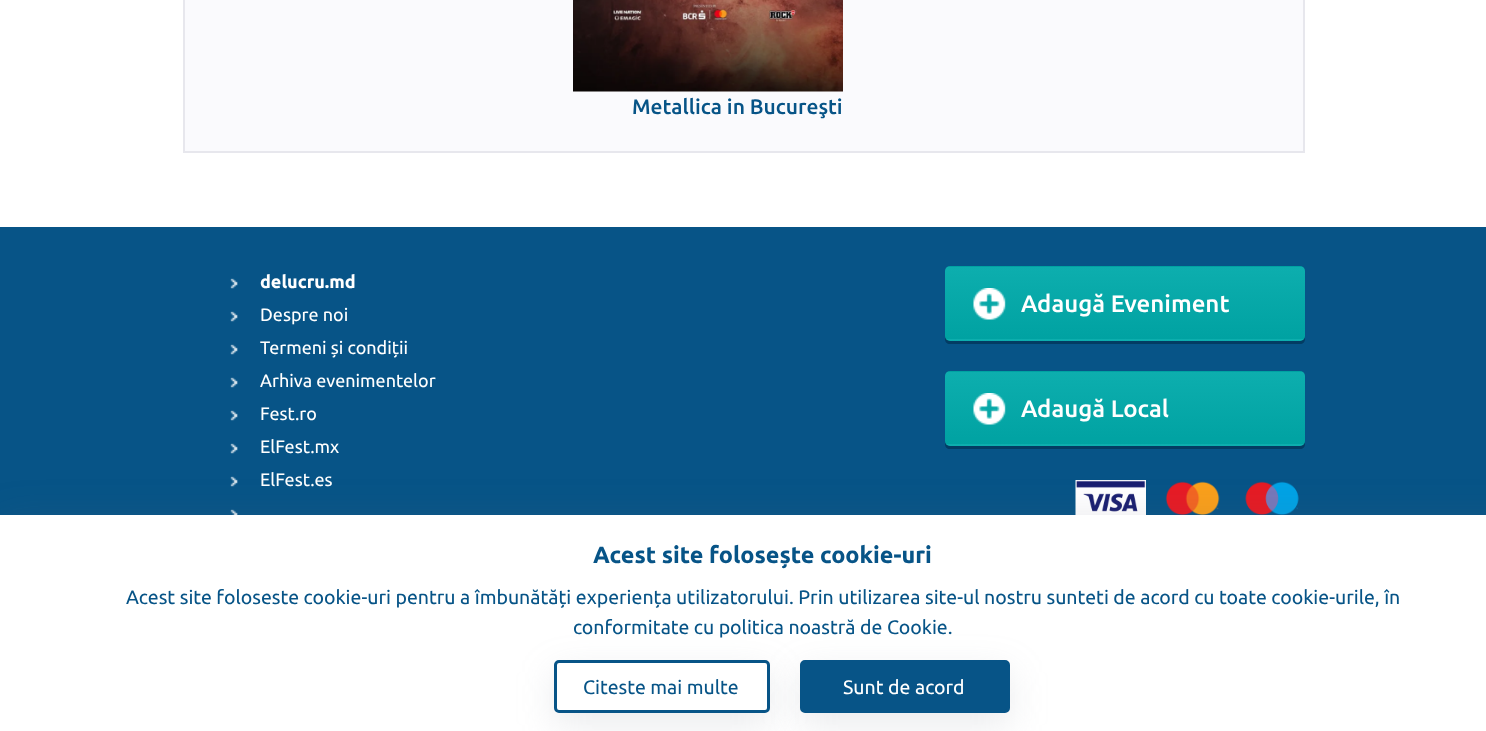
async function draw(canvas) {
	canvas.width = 1486;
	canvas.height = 731;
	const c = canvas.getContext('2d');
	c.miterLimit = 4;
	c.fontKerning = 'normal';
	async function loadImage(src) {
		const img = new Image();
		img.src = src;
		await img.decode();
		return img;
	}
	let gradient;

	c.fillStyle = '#fff';
	c.fillRect(0, 0, 1486, 731);
	c.fillStyle = '#fafafd';
	c.beginPath();
	c.rect(184, -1, 1120, 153);
	c.fill();
	c.strokeStyle = '#e7e7ed';
	c.lineWidth = 2;
	c.stroke();
	c.drawImage(await loadImage('img1.png'), 573, 0, 270, 92);
	c.font = '500 21px Ubuntu';
	c.fillStyle = '#075487';
	c.fillText('Metallica in Bucureşti', 632, 114);
	c.fillRect(0, 227, 1486, 288);
	c.drawImage(await loadImage('img2.png'), 230, 278, 8, 11);
	c.font = 'bold 18px Ubuntu';
	c.fillStyle = '#fff';
	c.fillText('delucru.md', 260, 288);
	c.drawImage(await loadImage('img2.png'), 230, 311, 8, 11);
	c.font = '18px Ubuntu';
	c.fillText('Despre noi', 260, 321);
	c.drawImage(await loadImage('img2.png'), 230, 344, 8, 11);
	c.fillText('Termeni și condiții', 260, 354);
	c.drawImage(await loadImage('img2.png'), 230, 377, 8, 11);
	c.fillText('Arhiva evenimentelor', 260, 387);
	c.drawImage(await loadImage('img2.png'), 230, 410, 8, 11);
	c.fillText('Fest.ro', 260, 420);
	c.drawImage(await loadImage('img2.png'), 230, 443, 8, 11);
	c.fillText('ElFest.mx', 260, 453);
	c.drawImage(await loadImage('img2.png'), 230, 476, 8, 11);
	c.fillText('ElFest.es', 260, 486);
	c.drawImage(await loadImage('img3.png'), 230, 509, 8, 6);
	c.fillStyle = '#033c63';
	c.beginPath();
	c.moveTo(945, 336);
	c.lineTo(945, 339);
	c.bezierCurveTo(945, 342, 947, 344, 950, 344);
	c.lineTo(1300, 344);
	c.bezierCurveTo(1303, 344, 1305, 342, 1305, 339);
	c.lineTo(1305, 336);
	c.bezierCurveTo(1305, 338, 1303, 340, 1300, 340);
	c.lineTo(950, 340);
	c.bezierCurveTo(947, 340, 945, 338, 945, 336);
	c.closePath();
	c.fill();
	c.save();
	c.beginPath();
	c.roundRect(945, 266, 360, 75, 5);
	c.clip();
	gradient = c.createLinearGradient(1125, 195, 1125, 267);
	gradient.addColorStop(0, '#0daeae');
	gradient.addColorStop(1, '#00a2a2');
	c.fillStyle = gradient;
	c.fillRect(945, 266, 360, 1);
	gradient = c.createLinearGradient(1125, 267, 1125, 339);
	gradient.addColorStop(0, '#0daeae');
	gradient.addColorStop(1, '#00a2a2');
	c.fillStyle = gradient;
	c.fillRect(945, 267, 360, 72);
	gradient = c.createLinearGradient(1125, 339, 1125, 411);
	gradient.addColorStop(0, '#0daeae');
	gradient.addColorStop(1, '#00a2a2');
	c.fillStyle = gradient;
	c.fillRect(945, 339, 360, 2);
	c.restore();
	c.drawImage(await loadImage('img4.png'), 973, 288, 33, 32);
	c.font = '500 24px Ubuntu';
	c.fillStyle = '#fff';
	c.fillText('Adaugă Eveniment', 1021, 312);
	c.fillStyle = '#033c63';
	c.beginPath();
	c.moveTo(945, 441);
	c.lineTo(945, 444);
	c.bezierCurveTo(945, 447, 947, 449, 950, 449);
	c.lineTo(1300, 449);
	c.bezierCurveTo(1303, 449, 1305, 447, 1305, 444);
	c.lineTo(1305, 441);
	c.bezierCurveTo(1305, 443, 1303, 446, 1300, 446);
	c.lineTo(950, 446);
	c.bezierCurveTo(947, 446, 945, 443, 945, 441);
	c.closePath();
	c.fill();
	c.save();
	c.beginPath();
	c.roundRect(945, 371, 360, 75, 5);
	c.clip();
	gradient = c.createLinearGradient(1125, 300, 1125, 372);
	gradient.addColorStop(0, '#0daeae');
	gradient.addColorStop(1, '#00a2a2');
	c.fillStyle = gradient;
	c.fillRect(945, 371, 360, 1);
	gradient = c.createLinearGradient(1125, 372, 1125, 444);
	gradient.addColorStop(0, '#0daeae');
	gradient.addColorStop(1, '#00a2a2');
	c.fillStyle = gradient;
	c.fillRect(945, 372, 360, 72);
	gradient = c.createLinearGradient(1125, 444, 1125, 516);
	gradient.addColorStop(0, '#0daeae');
	gradient.addColorStop(1, '#00a2a2');
	c.fillStyle = gradient;
	c.fillRect(945, 444, 360, 2);
	c.restore();
	c.drawImage(await loadImage('img4.png'), 973, 393, 33, 32);
	c.fillStyle = '#fff';
	c.fillText('Adaugă Local', 1021, 417);
	c.drawImage(await loadImage('img5.png'), 1075, 480, 71, 35);
	c.drawImage(await loadImage('img6.png'), 1165, 481, 55, 34);
	c.drawImage(await loadImage('img7.png'), 1245, 481, 54, 34);
	c.fillStyle = '#64646f33';
	c.filter = 'blur(22px)';
	c.beginPath();
	c.rect(0, 525, 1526, 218);
	c.fill();
	c.filter = 'none';
	c.fillStyle = '#fff';
	c.fillRect(0, 515, 1486, 216);
	c.font = 'bold 23.4px Ubuntu';
	c.fillStyle = '#075487';
	c.fillText('Acest site folosește cookie-uri', 593, 563);
	c.font = '19.5px Ubuntu';
	c.fillText('Acest site foloseste cookie-uri pentru a îmbunătăți experiența utilizatorului. Prin utilizarea site-ul nostru sunteti de acord cu toate cookie-urile, în', 126, 604);
	c.fillText('conformitate cu politica noastră de Cookie.', 573, 634);
	c.save();
	c.beginPath();
	c.moveTo(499, 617);
	c.lineTo(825, 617);
	c.lineTo(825, 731);
	c.lineTo(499, 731);
	c.closePath();
	c.moveTo(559, 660);
	c.lineTo(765, 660);
	c.bezierCurveTo(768, 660, 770, 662, 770, 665);
	c.lineTo(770, 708);
	c.bezierCurveTo(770, 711, 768, 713, 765, 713);
	c.lineTo(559, 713);
	c.bezierCurveTo(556, 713, 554, 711, 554, 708);
	c.lineTo(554, 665);
	c.bezierCurveTo(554, 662, 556, 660, 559, 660);
	c.closePath();
	c.clip('evenodd');
	c.fillStyle = '#959da533';
	c.filter = 'blur(18px)';
	c.beginPath();
	c.roundRect(554, 672, 216, 53, 5);
	c.fill();
	c.filter = 'none';
	c.restore();
	c.beginPath();
	c.roundRect(555.5, 661.5, 213, 50, 3.5);
	c.strokeStyle = '#075487';
	c.lineWidth = 3;
	c.stroke();
	c.fillText('Citeste mai multe', 583, 694);
	c.fillStyle = '#959da533';
	c.filter = 'blur(18px)';
	c.beginPath();
	c.roundRect(800, 672, 210, 53, 5);
	c.fill();
	c.filter = 'none';
	c.fillStyle = '#075487';
	c.beginPath();
	c.roundRect(801.5, 661.5, 207, 50, 3.5);
	c.fill();
	c.stroke();
	c.fillStyle = '#fff';
	c.fillText('Sunt de acord', 843, 694);
}

draw(document.querySelector('canvas'));
